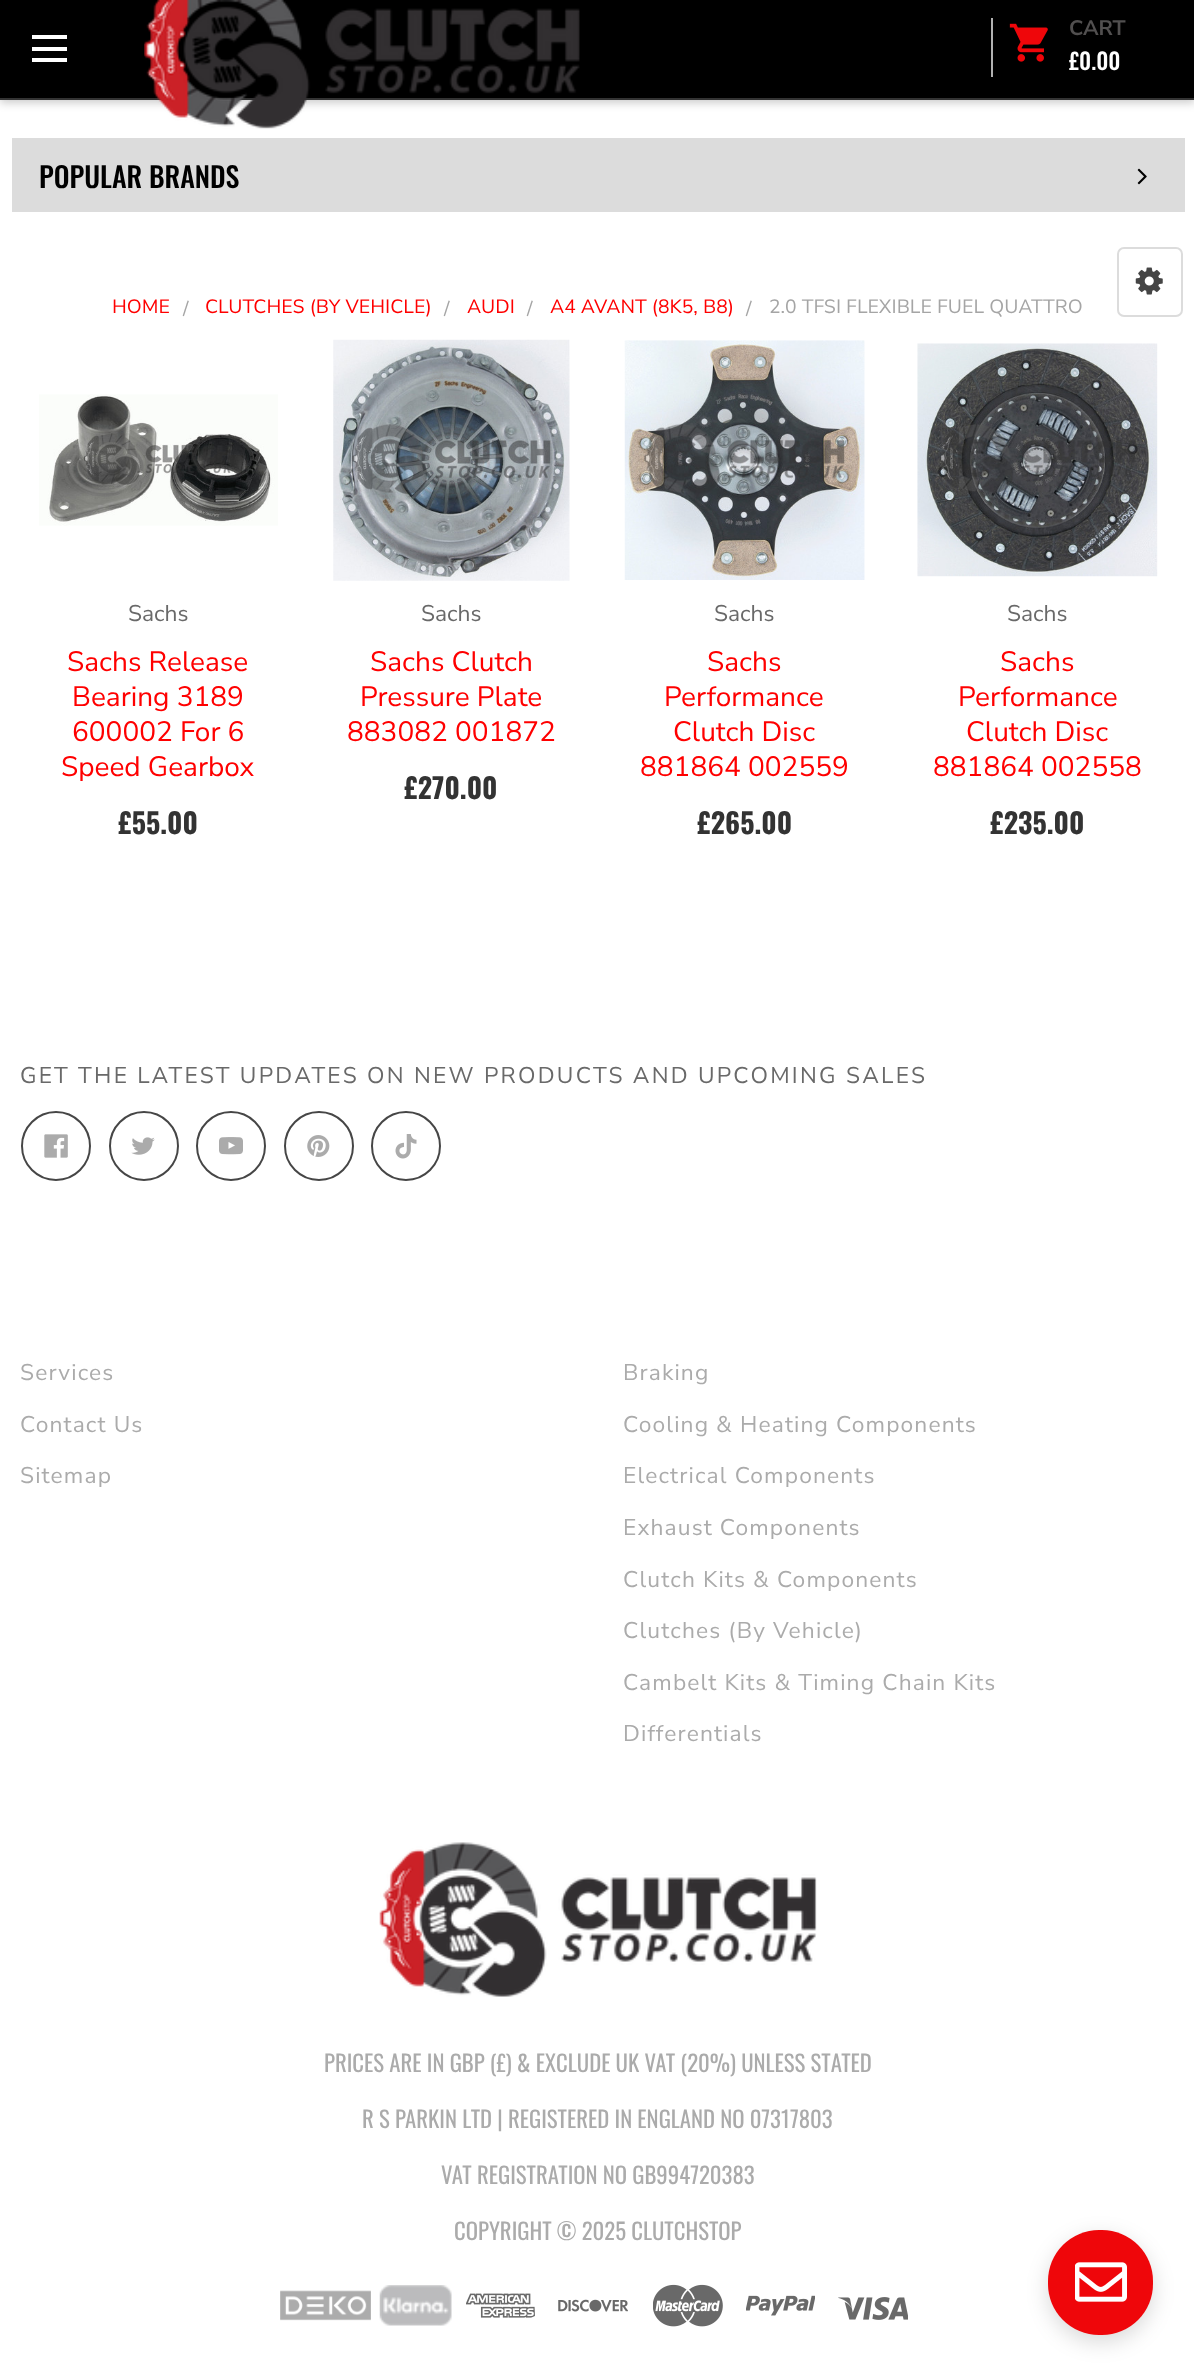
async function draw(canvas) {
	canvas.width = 1194;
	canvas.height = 2375;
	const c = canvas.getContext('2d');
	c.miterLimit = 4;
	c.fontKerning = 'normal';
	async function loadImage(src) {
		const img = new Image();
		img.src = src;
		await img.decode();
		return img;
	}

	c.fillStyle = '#fff';
	c.fillRect(0, 0, 1194, 2375);
	c.fillStyle = '#00000033';
	c.filter = 'blur(4.5px)';
	c.beginPath();
	c.rect(0, 4, 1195, 99);
	c.fill();
	c.filter = 'none';
	for (const [x, y, w, h, color] of [
		[0, 0, 1194, 98, '#000'],
		[0, 98, 1194, 2, '#333'],
		[32, 47, 35, 4, '#fff'],
		[32, 35, 35, 4, '#fff'],
		[32, 58, 35, 4, '#fff'],
	]) {
		c.fillStyle = color;
		c.fillRect(x, y, w, h);
	}
	c.drawImage(await loadImage('img1.png'), 144, 0, 436, 129);
	c.fillStyle = '#b1b1b1';
	c.fillRect(991, 18, 2, 59);
	c.drawImage(await loadImage('img2.png'), 1009, 23, 39, 39);
	c.font = 'bold 21px Nunito Sans';
	c.fillStyle = '#514f4f';
	c.fillText('CART', 1069, 35);
	c.font = '500 22.75px Oswald';
	c.fillStyle = '#fff';
	c.fillText('£0.00', 1069, 70);
	c.strokeStyle = '#dcdcdc';
	c.lineWidth = 2;
	c.strokeRect(13, 139, 1171, 72);
	c.fillStyle = '#dcdcdc';
	c.fillRect(14, 140, 1169, 70);
	c.font = '500 28px Oswald';
	c.fillStyle = '#000';
	c.fillText('POPULAR BRANDS', 39, 188);
	c.drawImage(await loadImage('img3.png'), 1137, 168, 10, 17);
	c.beginPath();
	c.roundRect(1118, 248, 64, 68, 6);
	c.stroke();
	c.drawImage(await loadImage('img4.png'), 1135, 267, 28, 28);
	c.font = '19.25px Nunito Sans';
	c.fillStyle = '#f00';
	c.fillText('HOME', 112, 313);
	c.fillStyle = '#a5a5a5';
	c.fillText('/', 183, 315);
	c.fillStyle = '#f00';
	c.fillText('CLUTCHES (BY VEHICLE)', 205, 313);
	c.fillStyle = '#a5a5a5';
	c.fillText('/', 444, 315);
	c.fillStyle = '#f00';
	c.fillText('AUDI', 467, 313);
	c.fillStyle = '#a5a5a5';
	c.fillText('/', 527, 315);
	c.fillStyle = '#f00';
	c.fillText('A4 AVANT (8K5, B8)', 550, 313);
	c.fillStyle = '#a5a5a5';
	c.fillText('/', 746, 315);
	c.fillText('2.0 TFSI FLEXIBLE FUEL QUATTRO', 769, 313);
	c.drawImage(await loadImage('img5.png'), 39, 394, 239, 132);
	c.font = '22.75px "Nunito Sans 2"';
	c.fillStyle = '#696969';
	c.fillText('Sachs', 128, 621);
	c.font = '28px "Nunito Sans 2"';
	c.fillStyle = '#f00';
	for (const [text, x, y] of [
		['Sachs Release', 67, 671],
		['Bearing 3189', 72, 706],
		['600002 For 6', 72, 741],
		['Speed Gearbox', 61, 776],
	]) {
		c.fillText(text, x, y);
	}
	c.font = 'bold 28px Oswald';
	c.fillStyle = '#333';
	c.fillText('£55.00', 118, 834);
	c.drawImage(await loadImage('img6.png'), 333, 339, 237, 242);
	c.font = '22.75px "Nunito Sans 2"';
	c.fillStyle = '#696969';
	c.fillText('Sachs', 421, 621);
	c.font = '28px "Nunito Sans 2"';
	c.fillStyle = '#f00';
	for (const [text, x, y] of [
		['Sachs Clutch', 370, 671],
		['Pressure Plate', 360, 706],
		['883082 001872', 347, 741],
	]) {
		c.fillText(text, x, y);
	}
	c.font = 'bold 28px Oswald';
	c.fillStyle = '#333';
	c.fillText('£270.00', 404, 799);
	c.drawImage(await loadImage('img7.png'), 624, 340, 241, 240);
	c.font = '22.75px "Nunito Sans 2"';
	c.fillStyle = '#696969';
	c.fillText('Sachs', 714, 621);
	c.font = '28px "Nunito Sans 2"';
	c.fillStyle = '#f00';
	for (const [text, x, y] of [
		['Sachs', 707, 671],
		['Performance', 664, 706],
		['Clutch Disc', 673, 741],
		['881864 002559', 640, 776],
	]) {
		c.fillText(text, x, y);
	}
	c.font = 'bold 28px Oswald';
	c.fillStyle = '#333';
	c.fillText('£265.00', 697, 834);
	c.drawImage(await loadImage('img8.png'), 917, 343, 241, 234);
	c.font = '22.75px "Nunito Sans 2"';
	c.fillStyle = '#696969';
	c.fillText('Sachs', 1007, 621);
	c.font = '28px "Nunito Sans 2"';
	c.fillStyle = '#f00';
	for (const [text, x, y] of [
		['Sachs', 1000, 671],
		['Performance', 958, 706],
		['Clutch Disc', 966, 741],
		['881864 002558', 933, 776],
	]) {
		c.fillText(text, x, y);
	}
	c.font = 'bold 28px Oswald';
	c.fillStyle = '#333';
	c.fillText('£235.00', 990, 834);
	c.letterSpacing = '2.27px';
	c.font = '22.75px "Nunito Sans 2"';
	c.fillStyle = '#696969';
	c.fillText('GET THE LATEST UPDATES ON NEW PRODUCTS AND UPCOMING SALES', 20, 1083);
	c.beginPath();
	c.arc(56, 1146, 34, 0, 2 * Math.PI);
	c.strokeStyle = '#464646';
	c.stroke();
	c.drawImage(await loadImage('img9.png'), 44, 1134, 24, 24);
	c.beginPath();
	c.arc(144, 1146, 34, 0, 2 * Math.PI);
	c.stroke();
	c.drawImage(await loadImage('img10.png'), 131, 1137, 24, 18);
	c.beginPath();
	c.arc(231, 1146, 34, 0, 2 * Math.PI);
	c.stroke();
	c.drawImage(await loadImage('img11.png'), 219, 1137, 24, 18);
	c.beginPath();
	c.arc(319, 1146, 34, 0, 2 * Math.PI);
	c.stroke();
	c.drawImage(await loadImage('img12.png'), 307, 1135, 23, 22);
	c.beginPath();
	c.arc(406, 1146, 34, 0, 2 * Math.PI);
	c.stroke();
	c.drawImage(await loadImage('img13.png'), 395, 1134, 22, 25);
	c.letterSpacing = '1.15px';
	c.fillStyle = '#ababab';
	for (const [text, x, y] of [
		['Services', 20, 1380],
		['Contact Us', 20, 1432],
		['Sitemap', 20, 1483],
		['Braking', 623, 1380],
		['Cooling & Heating Components', 623, 1432],
		['Electrical Components', 623, 1483],
		['Exhaust Components', 623, 1535],
		['Clutch Kits & Components', 623, 1587],
		['Clutches (By Vehicle)', 623, 1638],
		['Cambelt Kits & Timing Chain Kits', 623, 1690],
		['Differentials', 623, 1741],
	]) {
		c.fillText(text, x, y);
	}
	c.drawImage(await loadImage('img14.png'), 379, 1842, 438, 155);
	c.letterSpacing = '0px';
	c.font = '22.75px Oswald';
	for (const [text, x, y] of [
		['PRICES ARE IN GBP (£) & EXCLUDE UK VAT (20%) UNLESS STATED', 324, 2072],
		['R S PARKIN LTD | REGISTERED IN ENGLAND NO 07317803', 362, 2128],
		['VAT REGISTRATION NO GB994720383', 441, 2184],
		['COPYRIGHT © 2025 CLUTCHSTOP', 454, 2240],
	]) {
		c.fillText(text, x, y);
	}
	c.drawImage(await loadImage('img15.png'), 280, 2290, 91, 31);
	c.drawImage(await loadImage('img16.png'), 379, 2285, 73, 41);
	c.drawImage(await loadImage('img17.png'), 466, 2293, 69, 25);
	c.drawImage(await loadImage('img18.png'), 558, 2299, 70, 13);
	c.drawImage(await loadImage('img19.png'), 653, 2284, 70, 43);
	c.drawImage(await loadImage('img20.png'), 746, 2295, 69, 21);
	c.drawImage(await loadImage('img21.png'), 838, 2297, 70, 23);
	c.fillStyle = '#00000026';
	c.filter = 'blur(10.5px)';
	c.beginPath();
	c.roundRect(1048, 2237, 105, 105, 51);
	c.fill();
	c.filter = 'none';
	c.fillStyle = '#ef060a';
	c.beginPath();
	c.roundRect(1048, 2230, 105, 105, 51);
	c.fill();
	c.drawImage(await loadImage('img22.png'), 1075, 2262, 52, 40);
}

draw(document.querySelector('canvas'));
